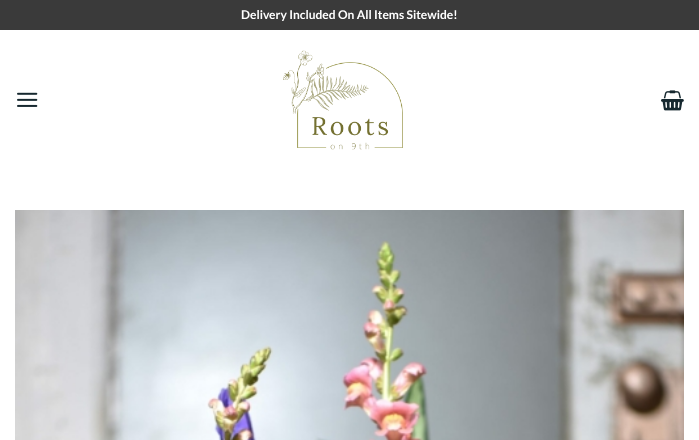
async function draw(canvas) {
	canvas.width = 699;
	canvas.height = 440;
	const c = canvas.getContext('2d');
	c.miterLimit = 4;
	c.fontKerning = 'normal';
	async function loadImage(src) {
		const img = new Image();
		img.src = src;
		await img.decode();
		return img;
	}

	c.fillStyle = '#fff';
	c.fillRect(0, 0, 699, 440);
	c.fillStyle = '#3a3a3a';
	c.fillRect(0, 0, 699, 30);
	c.font = 'bold 12px Lato';
	c.fillStyle = '#fff';
	c.fillText('Delivery Included On All Items Sitewide!', 241, 19);
	c.drawImage(await loadImage('img1.png'), 17, 92, 21, 15);
	c.drawImage(await loadImage('img2.png'), 283, 50, 120, 100);
	c.drawImage(await loadImage('img3.png'), 661, 90, 23, 21);
	c.drawImage(await loadImage('img4.png'), 15, 210, 669, 230);
}

draw(document.querySelector('canvas'));
